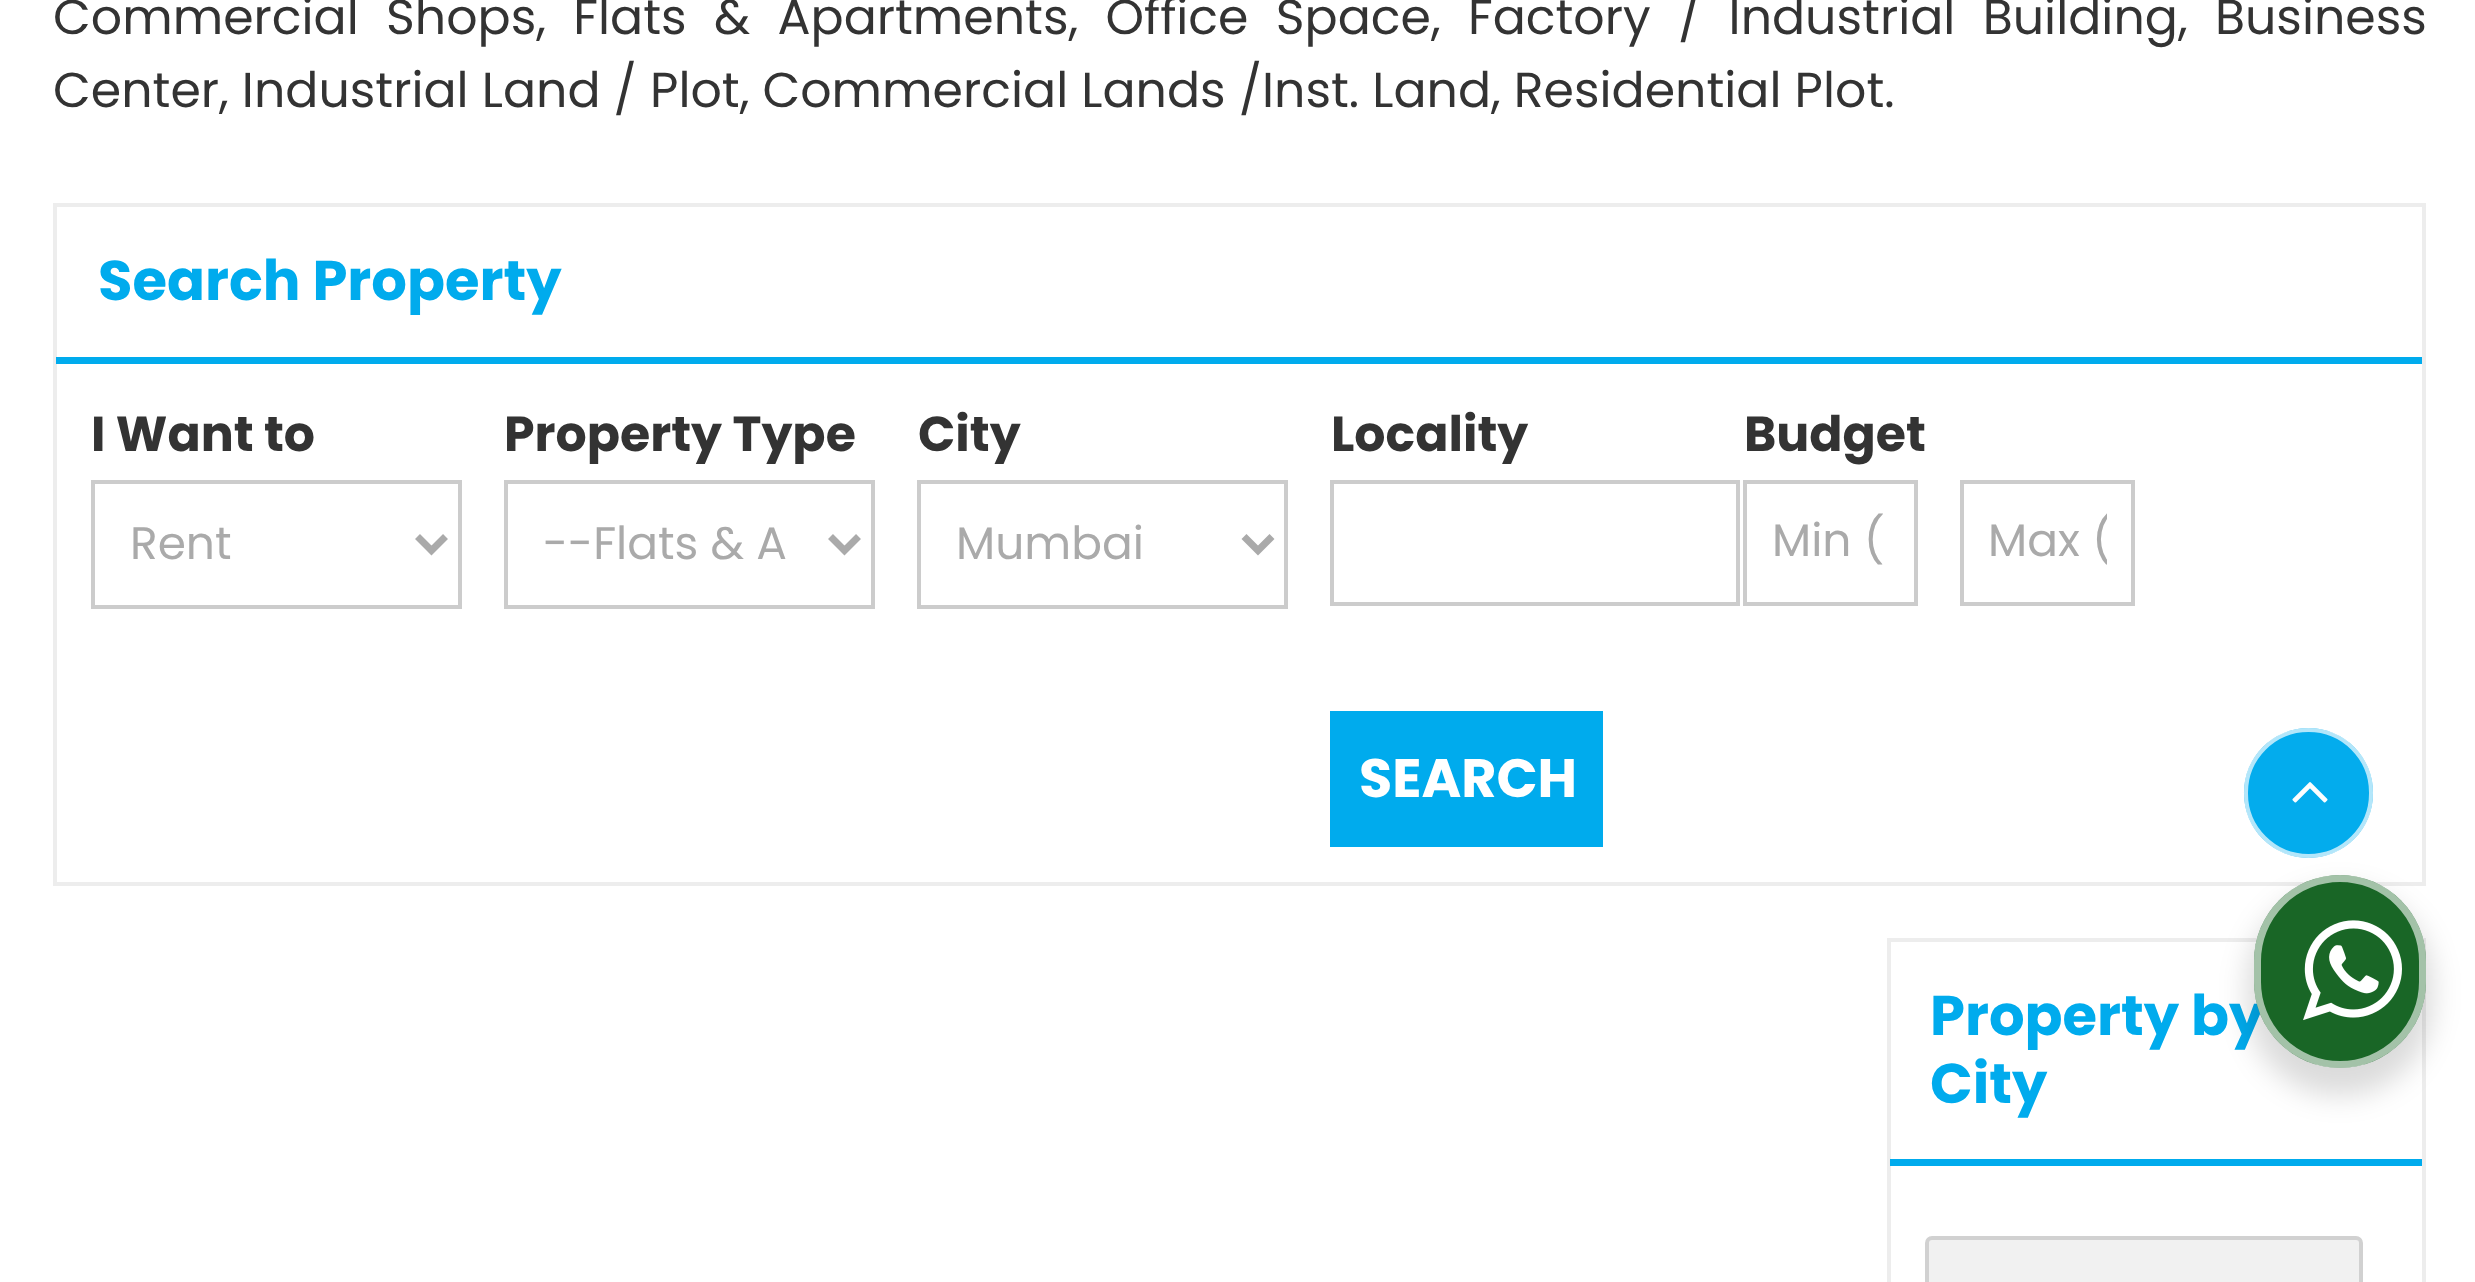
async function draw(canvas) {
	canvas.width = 2475;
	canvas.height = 1282;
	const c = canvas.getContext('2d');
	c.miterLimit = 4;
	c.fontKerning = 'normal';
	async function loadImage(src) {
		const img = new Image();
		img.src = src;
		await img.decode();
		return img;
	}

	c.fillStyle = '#fff';
	c.fillRect(0, 0, 2475, 1282);
	c.wordSpacing = '14.25px';
	c.font = '49px Poppins';
	c.fillStyle = '#333';
	c.fillText('Commercial Shops, Flats & Apartments, Office Space, Factory / Industrial Building, Business', 53, 34);
	c.wordSpacing = '0px';
	c.fillText('Center, Industrial Land / Plot, Commercial Lands /Inst. Land, Residential Plot.', 53, 107);
	c.strokeStyle = '#ededed';
	c.lineWidth = 4;
	c.strokeRect(55, 205, 2369, 679);
	c.fillStyle = '#00abed';
	c.fillRect(56, 357, 2366, 7);
	c.font = 'bold 56px Poppins';
	c.fillText('Search Property', 98, 300);
	c.font = 'bold 49px Poppins';
	c.fillStyle = '#333';
	c.fillText('I Want to', 91, 451);
	c.strokeStyle = '#ccc';
	c.strokeRect(93, 482, 367, 125);
	c.beginPath();
	c.moveTo(417.5, 536.5);
	c.lineTo(431.5, 550.5);
	c.lineTo(445.5, 536.5);
	c.strokeStyle = '#aaa';
	c.lineWidth = 7;
	c.stroke();
	c.font = '45.5px Poppins';
	c.fillStyle = '#aaa';
	c.fillText('Rent', 130, 559);
	c.font = 'bold 49px Poppins';
	c.fillStyle = '#333';
	c.fillText('Property Type', 504, 451);
	c.strokeStyle = '#ccc';
	c.lineWidth = 4;
	c.strokeRect(506, 482, 367, 125);
	c.beginPath();
	c.moveTo(830.5, 536.5);
	c.lineTo(844.5, 550.5);
	c.lineTo(858.5, 536.5);
	c.strokeStyle = '#aaa';
	c.lineWidth = 7;
	c.stroke();
	c.font = '45.5px Poppins';
	c.fillStyle = '#aaa';
	c.fillText('--Flats & A', 543, 559);
	c.font = 'bold 49px Poppins';
	c.fillStyle = '#333';
	c.fillText('City', 918, 451);
	c.strokeStyle = '#ccc';
	c.lineWidth = 4;
	c.strokeRect(919, 482, 367, 125);
	c.beginPath();
	c.moveTo(1244, 536.5);
	c.lineTo(1258, 550.5);
	c.lineTo(1272, 536.5);
	c.strokeStyle = '#aaa';
	c.lineWidth = 7;
	c.stroke();
	c.font = '45.5px Poppins';
	c.fillStyle = '#aaa';
	c.fillText('Mumbai', 956, 559);
	c.font = 'bold 49px Poppins';
	c.fillStyle = '#333';
	c.fillText('Locality', 1331, 451);
	c.strokeStyle = '#ccc';
	c.lineWidth = 4;
	c.strokeRect(1332, 482, 406, 122);
	c.fillText('Budget', 1744, 451);
	c.strokeRect(1745, 482, 171, 122);
	c.font = '45.5px Poppins';
	c.fillStyle = '#aaa';
	c.fillText('Min (', 1772, 556);
	c.strokeRect(1962, 482, 171, 122);
	c.save();
	c.beginPath();
	c.rect(1988, 508, 119, 70);
	c.clip();
	c.fillText('Max (', 1988, 556);
	c.restore();
	c.fillStyle = '#00abed';
	c.fillRect(1330, 711, 273, 136);
	c.font = 'bold 54px Poppins';
	c.fillStyle = '#fff';
	c.fillText('SEARCH', 1359, 797);
	c.strokeStyle = '#ededed';
	c.strokeRect(1889, 940, 535, 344);
	c.fillStyle = '#00abed';
	c.fillRect(1890, 1159, 532, 7);
	c.font = 'bold 56px Poppins';
	c.fillText('Property by', 1930, 1035);
	c.fillText('City', 1930, 1103);
	c.fillStyle = '#f1f1f1';
	c.beginPath();
	c.roundRect(1925, 1236, 438, 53, 7);
	c.fill();
	c.beginPath();
	c.roundRect(1927, 1238, 434, 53, 5);
	c.strokeStyle = '#00000021';
	c.stroke();
	c.fillStyle = '#03aced';
	c.beginPath();
	c.roundRect(2244, 728, 129, 130, 64.5);
	c.fill();
	c.beginPath();
	c.roundRect(2246, 730, 125, 126, 62.5);
	c.strokeStyle = '#ffffffb3';
	c.stroke();
	c.drawImage(await loadImage('img1.png'), 2292, 782, 36, 21);
	c.fillStyle = '#00000024';
	c.filter = 'blur(14px)';
	c.beginPath();
	c.roundRect(2247, 889, 186, 207, 93);
	c.fill();
	c.filter = 'none';
	c.fillStyle = '#196626';
	c.beginPath();
	c.roundRect(2254, 875, 172, 193, 86);
	c.fill();
	c.beginPath();
	c.roundRect(2257.5, 878.5, 165, 186, 82.5);
	c.strokeStyle = '#ffffff99';
	c.lineWidth = 7;
	c.stroke();
	c.drawImage(await loadImage('img2.png'), 2303, 920, 99, 101);
}

draw(document.querySelector('canvas'));
